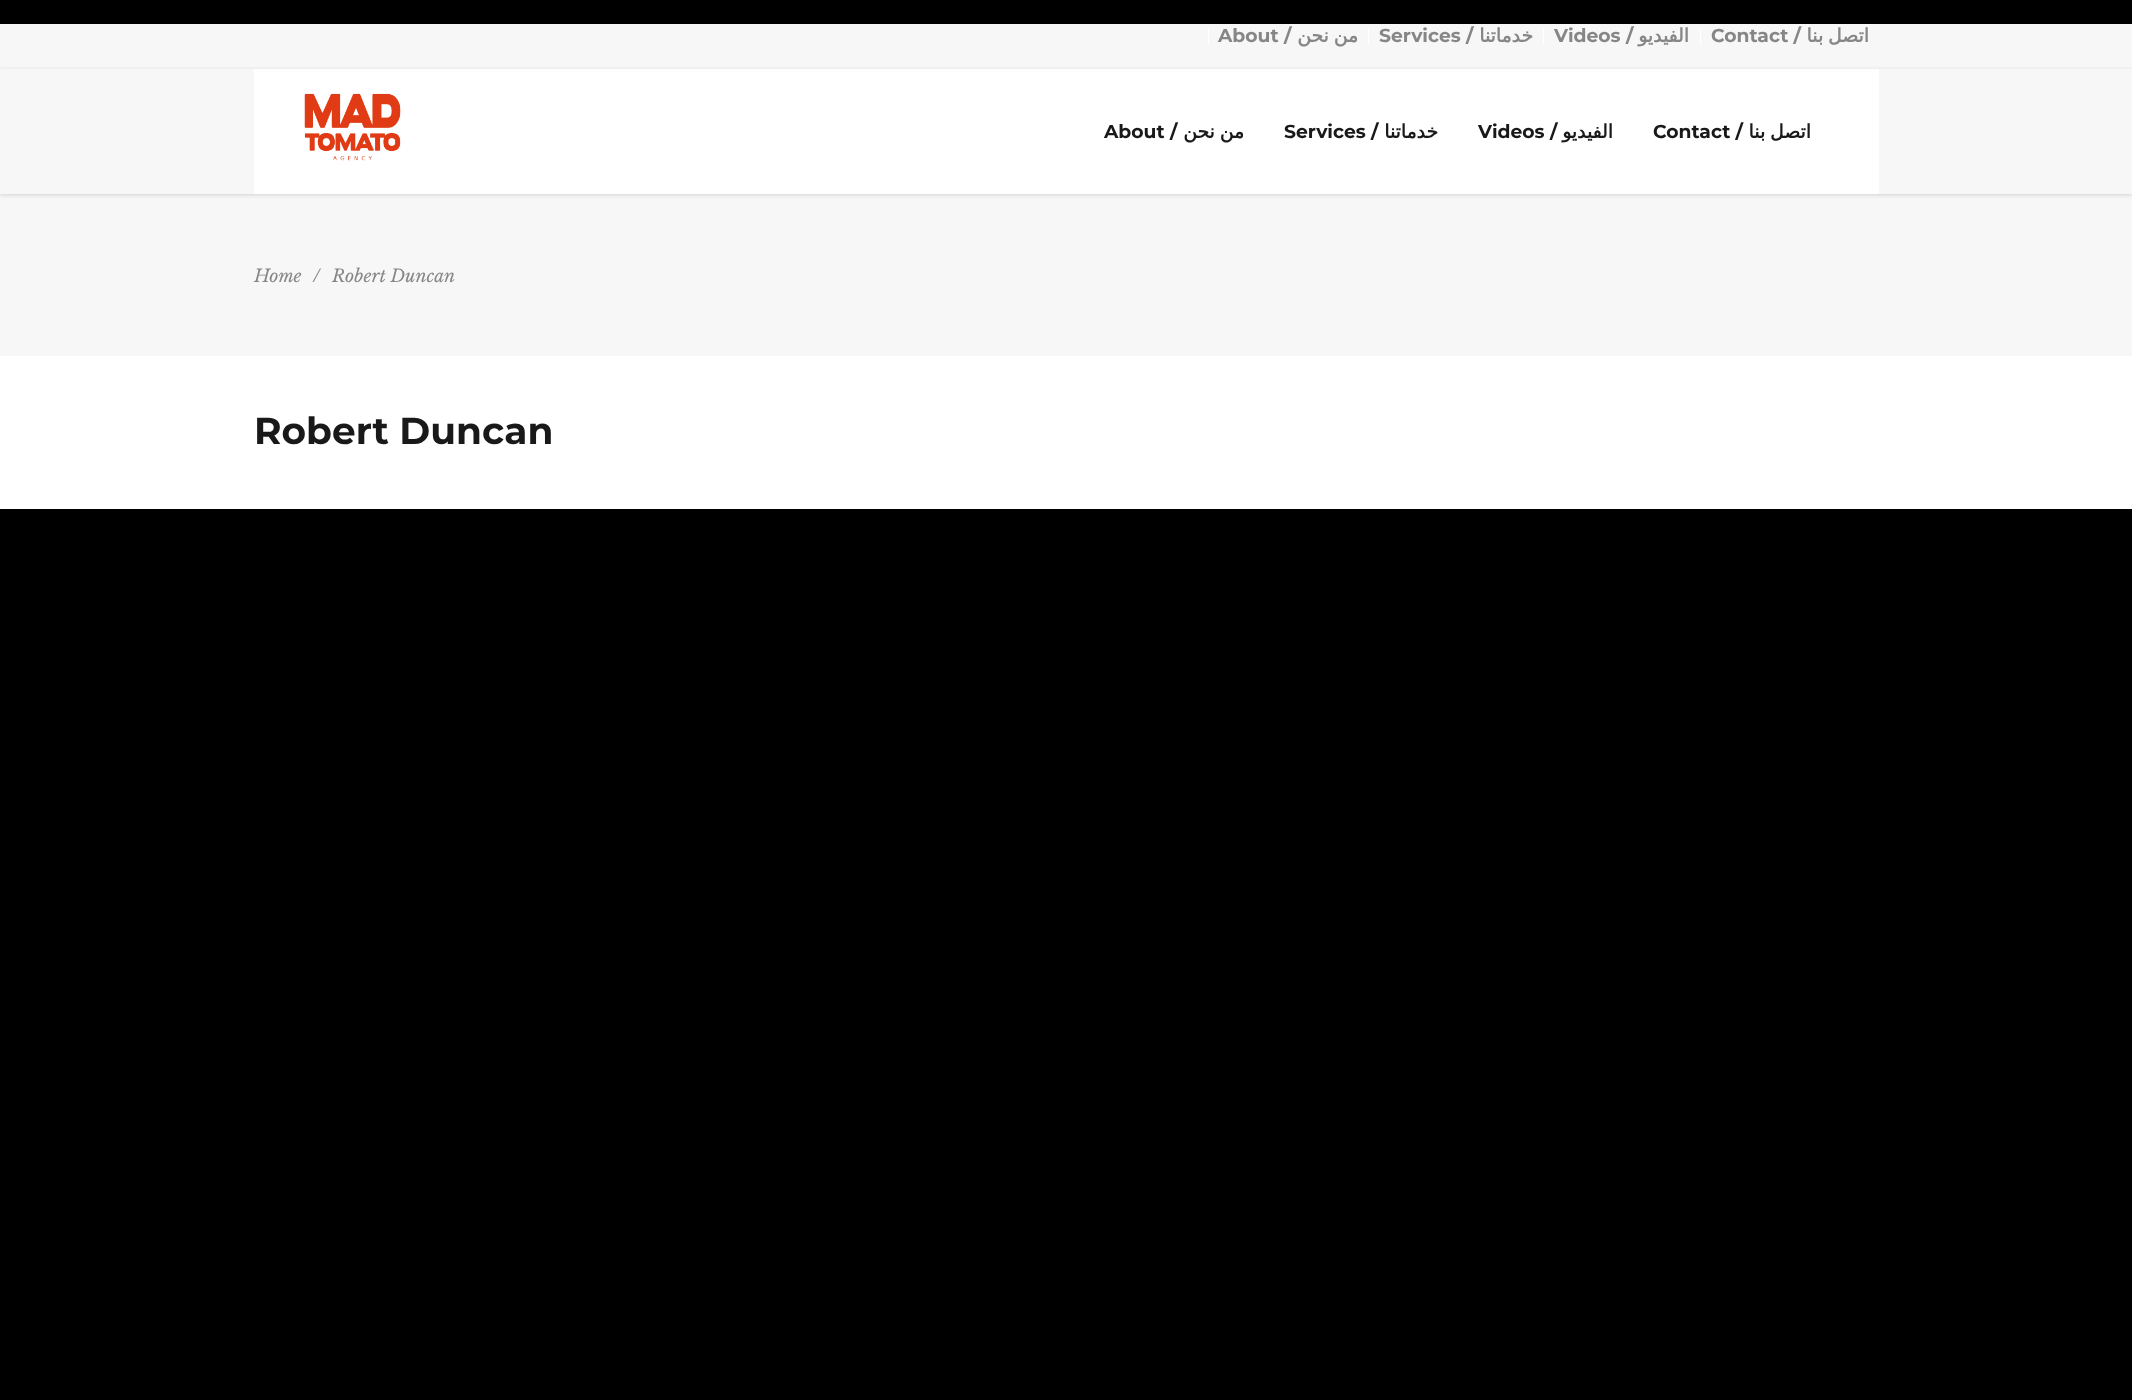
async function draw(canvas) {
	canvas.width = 2132;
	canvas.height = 1400;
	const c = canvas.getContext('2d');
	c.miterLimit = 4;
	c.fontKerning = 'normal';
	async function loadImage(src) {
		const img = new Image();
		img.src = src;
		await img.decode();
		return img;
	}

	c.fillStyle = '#000';
	c.fillRect(0, 0, 2132, 1400);
	c.fillStyle = '#f7f7f7';
	c.fillRect(0, 24, 2132, 332);
	c.fillStyle = '#fff';
	c.fillRect(1208, 28, 1, 17);
	c.font = 'bold 18.75px Montserrat';
	c.fillStyle = '#868686';
	c.fillText('About /', 1218, 42);
	c.wordSpacing = '-1px';
	c.direction = 'rtl';
	c.font = 'bold 18.75px DejaVu Sans';
	c.fillText('من نحن', 1358, 42);
	c.fillStyle = '#fff';
	c.fillRect(1368, 28, 1, 17);
	c.wordSpacing = '0px';
	c.direction = 'ltr';
	c.font = 'bold 18.75px Montserrat';
	c.fillStyle = '#868686';
	c.fillText('Services /', 1379, 42);
	c.direction = 'rtl';
	c.font = 'bold 18.75px DejaVu Sans';
	c.fillText('خدماتنا', 1533, 42);
	c.fillStyle = '#fff';
	c.fillRect(1543, 28, 1, 17);
	c.direction = 'ltr';
	c.font = 'bold 18.75px Montserrat';
	c.fillStyle = '#868686';
	c.fillText('Videos /', 1554, 42);
	c.direction = 'rtl';
	c.font = 'bold 18.75px DejaVu Sans';
	c.fillText('الفيديو', 1689, 42);
	c.fillStyle = '#fff';
	c.fillRect(1700, 28, 1, 17);
	c.direction = 'ltr';
	c.font = 'bold 18.75px Montserrat';
	c.fillStyle = '#868686';
	c.fillText('Contact /', 1711, 42);
	c.wordSpacing = '-1px';
	c.direction = 'rtl';
	c.font = 'bold 18.75px DejaVu Sans';
	c.fillText('اتصل بنا', 1869, 42);
	c.save();
	c.beginPath();
	c.moveTo(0, 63);
	c.lineTo(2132, 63);
	c.lineTo(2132, 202);
	c.lineTo(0, 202);
	c.closePath();
	c.moveTo(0, 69);
	c.lineTo(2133, 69);
	c.lineTo(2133, 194);
	c.lineTo(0, 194);
	c.closePath();
	c.clip('evenodd');
	c.fillStyle = '#00000026';
	c.filter = 'blur(2px)';
	c.beginPath();
	c.rect(0, 70, 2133, 125);
	c.fill();
	c.filter = 'none';
	c.restore();
	c.fillStyle = '#fff';
	c.fillRect(254, 69, 1625, 125);
	c.drawImage(await loadImage('img1.png'), 304, 93, 97, 68);
	c.wordSpacing = '0px';
	c.direction = 'ltr';
	c.font = 'bold 18.75px Montserrat';
	c.fillStyle = '#191919';
	c.fillText('About /', 1104, 138);
	c.wordSpacing = '-1px';
	c.direction = 'rtl';
	c.font = 'bold 18.75px DejaVu Sans';
	c.fillText('من نحن', 1244, 138);
	c.wordSpacing = '0px';
	c.direction = 'ltr';
	c.font = 'bold 18.75px Montserrat';
	c.fillText('Services /', 1284, 138);
	c.direction = 'rtl';
	c.font = 'bold 18.75px DejaVu Sans';
	c.fillText('خدماتنا', 1438, 138);
	c.direction = 'ltr';
	c.font = 'bold 18.75px Montserrat';
	c.fillText('Videos /', 1478, 138);
	c.direction = 'rtl';
	c.font = 'bold 18.75px DejaVu Sans';
	c.fillText('الفيديو', 1613, 138);
	c.direction = 'ltr';
	c.font = 'bold 18.75px Montserrat';
	c.fillText('Contact /', 1653, 138);
	c.wordSpacing = '-1px';
	c.direction = 'rtl';
	c.font = 'bold 18.75px DejaVu Sans';
	c.fillText('اتصل بنا', 1811, 138);
	c.fillStyle = '#fff';
	c.fillRect(0, 356, 2132, 153);
	c.wordSpacing = '0px';
	c.direction = 'ltr';
	c.font = 'italic 17.5px Libre Baskerville';
	c.fillStyle = '#868686';
	for (const [text, x, y] of [
		['Home', 254, 282],
		['/', 313, 282],
		['Robert Duncan', 332, 282],
	]) {
		c.fillText(text, x, y);
	}
	c.font = 'bold 37.5px Montserrat';
	c.fillStyle = '#191919';
	c.fillText('Robert Duncan', 254, 444);
}

draw(document.querySelector('canvas'));
